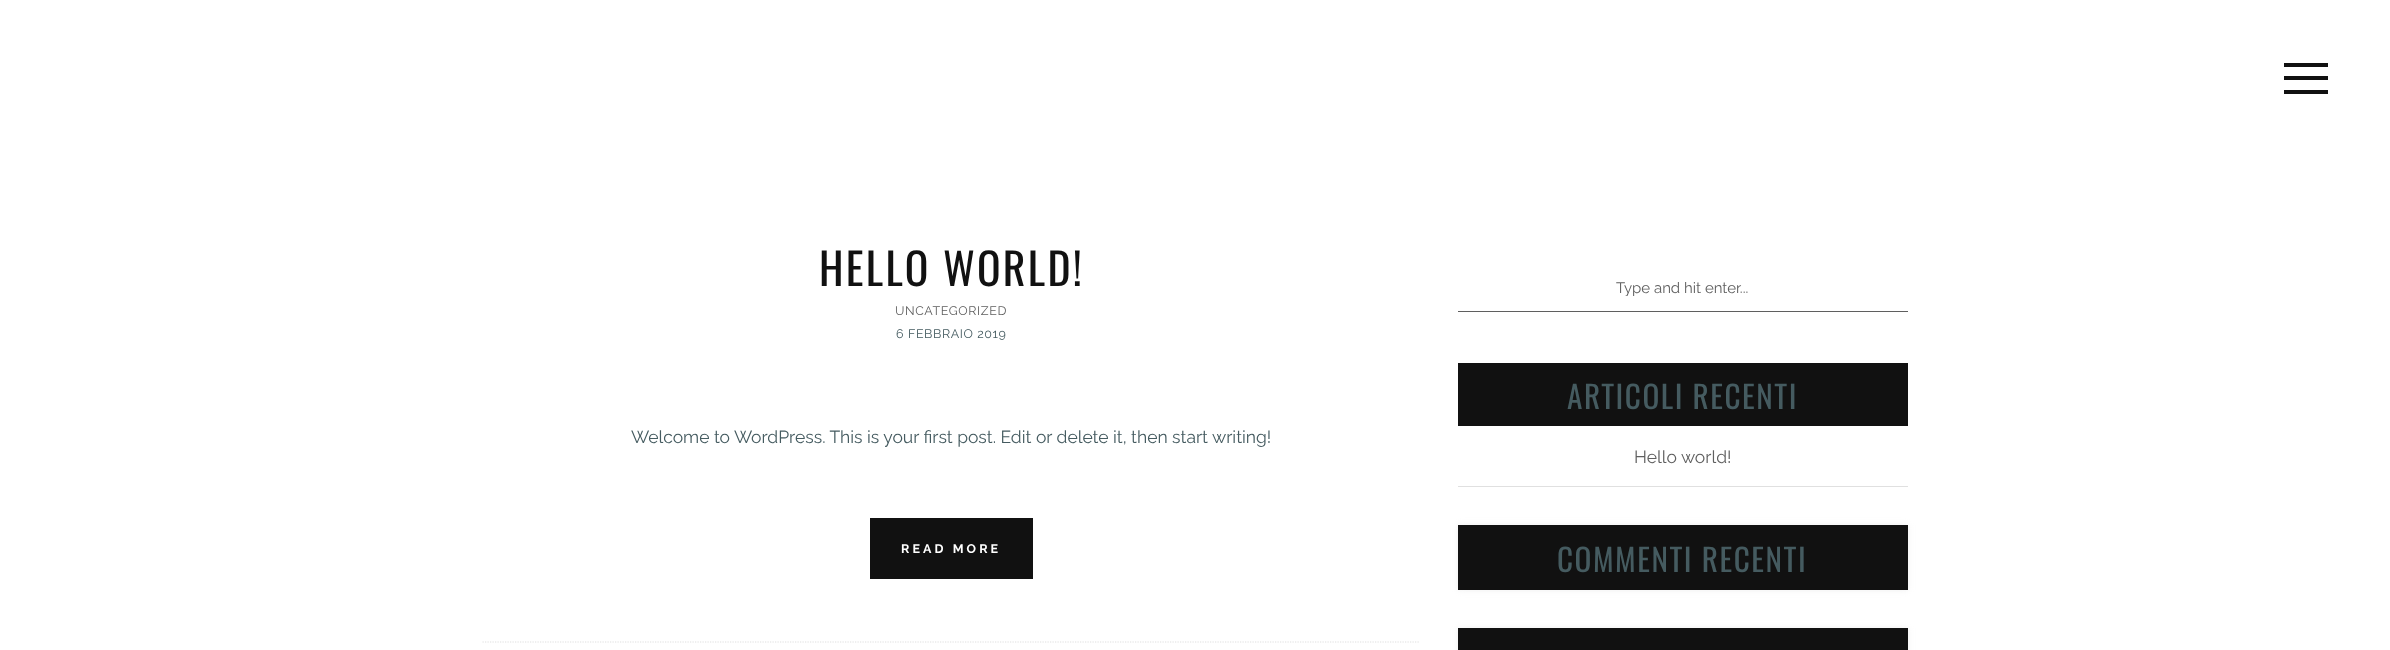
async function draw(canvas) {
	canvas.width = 2390;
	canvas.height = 650;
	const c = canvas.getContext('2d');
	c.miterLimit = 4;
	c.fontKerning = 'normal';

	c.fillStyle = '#fff';
	c.fillRect(0, 0, 2390, 650);
	for (const [x, y, w, h, color] of [
		[2284, 63, 44, 4, '#111'],
		[2284, 76, 44, 4, '#111'],
		[2284, 90, 44, 4, '#111'],
	]) {
		c.fillStyle = color;
		c.fillRect(x, y, w, h);
	}
	c.letterSpacing = '2.25px';
	c.font = '43.75px Oswald';
	c.fillText('HELLO WORLD!', 819, 286);
	c.letterSpacing = '0.6px';
	c.font = '12.5px Raleway';
	c.fillStyle = '#5f5f5f';
	c.fillText('UNCATEGORIZED', 895, 315);
	c.fillStyle = '#455b60';
	c.fillText('6 FEBBRAIO 2019', 896, 338);
	c.beginPath();
	c.moveTo(482.5, 642);
	c.lineTo(1420, 642);
	c.strokeStyle = '#e0e0e0';
	c.lineWidth = 1.2;
	c.setLineDash([1.25, 1.25]);
	c.stroke();
	c.letterSpacing = '0px';
	c.font = '17.5px Raleway';
	c.fillText('Welcome to WordPress. This is your first post. Edit or delete it, then start writing!', 631, 443);
	c.fillStyle = '#111';
	c.fillRect(870, 518, 163, 61);
	c.letterSpacing = '3.1px';
	c.font = 'bold 12.5px Raleway';
	c.fillStyle = '#fff';
	c.fillText('READ MORE', 901, 553);
	c.fillStyle = '#5f5f5f';
	c.fillRect(1458, 311, 450, 1);
	c.save();
	c.beginPath();
	c.rect(1464, 279, 437, 17);
	c.clip();
	c.letterSpacing = '0px';
	c.font = '15px Raleway';
	c.fillText('Type and hit enter...', 1616, 293);
	c.restore();
	c.fillStyle = '#111';
	c.fillRect(1458, 363, 450, 63);
	c.letterSpacing = '1.5px';
	c.font = '31.25px Oswald';
	c.fillStyle = '#455b60';
	c.fillText('ARTICOLI RECENTI', 1567, 409);
	c.fillStyle = '#e0e0e0';
	c.fillRect(1458, 486, 450, 1);
	c.letterSpacing = '0px';
	c.font = '17.5px Raleway';
	c.fillStyle = '#5f5f5f';
	c.fillText('Hello world!', 1634, 463);
	c.fillStyle = '#e0e0e080';
	c.filter = 'blur(3px)';
	c.beginPath();
	c.rect(1458, 525, 450, 65);
	c.fill();
	c.filter = 'none';
	c.fillStyle = '#111';
	c.fillRect(1458, 525, 450, 65);
	c.letterSpacing = '1.5px';
	c.font = '31.25px Oswald';
	c.fillStyle = '#455b60';
	c.fillText('COMMENTI RECENTI', 1557, 572);
	c.fillStyle = '#e0e0e080';
	c.filter = 'blur(3px)';
	c.beginPath();
	c.rect(1458, 628, 450, 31);
	c.fill();
	c.filter = 'none';
	c.fillStyle = '#111';
	c.fillRect(1458, 628, 450, 22);
}

draw(document.querySelector('canvas'));
